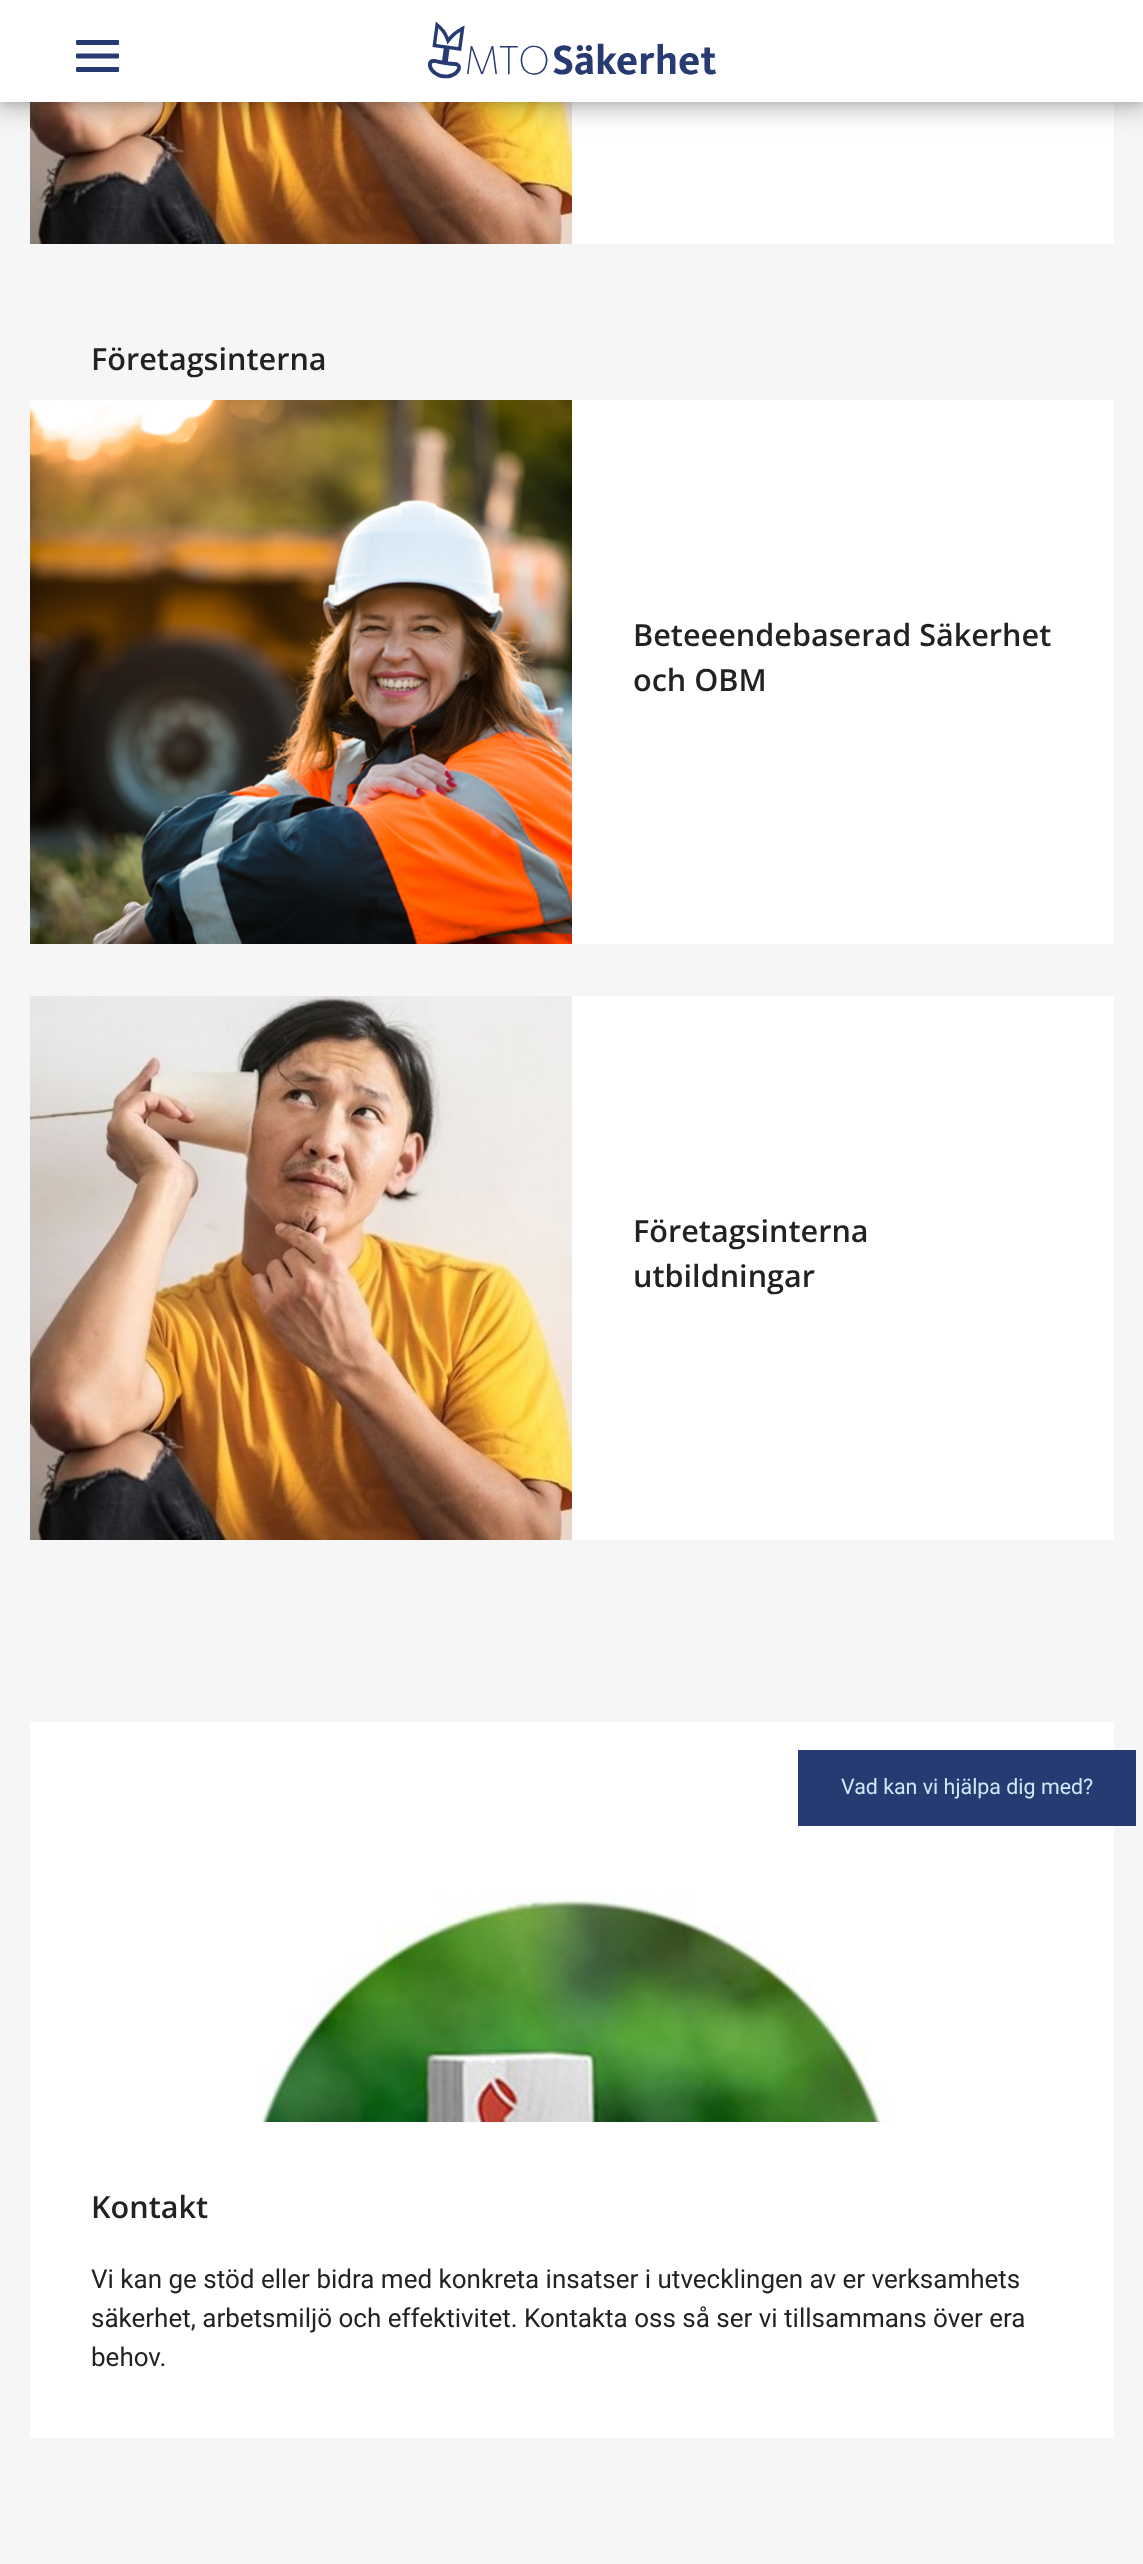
async function draw(canvas) {
	canvas.width = 1143;
	canvas.height = 2564;
	const c = canvas.getContext('2d');
	c.miterLimit = 4;
	c.fontKerning = 'normal';
	async function loadImage(src) {
		const img = new Image();
		img.src = src;
		await img.decode();
		return img;
	}

	c.fillStyle = '#f6f6f6';
	c.fillRect(0, 0, 1143, 2564);
	c.fillStyle = '#fff';
	c.fillRect(572, 102, 542, 142);
	c.drawImage(await loadImage('img3.png'), 30, 102, 542, 142);
	c.fillStyle = '#0000001a';
	c.filter = 'blur(4px)';
	c.beginPath();
	c.rect(0, 2, 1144, 102);
	c.fill();
	c.filter = 'none';
	c.fillStyle = '#0000004d';
	c.filter = 'blur(14px)';
	c.beginPath();
	c.rect(-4, -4, 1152, 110);
	c.fill();
	c.filter = 'none';
	c.fillStyle = '#fff';
	c.fillRect(0, 0, 1143, 102);
	c.drawImage(await loadImage('img1.png'), 76, 40, 44, 32);
	c.drawImage(await loadImage('img2.png'), 428, 21, 288, 58);
	c.font = '600 30.6px Open Sans';
	c.fillStyle = '#222';
	c.fillText('Företagsinterna', 91, 370);
	c.fillStyle = '#fff';
	c.fillRect(572, 400, 542, 544);
	c.drawImage(await loadImage('img4.png'), 30, 400, 542, 544);
	c.fillStyle = '#222';
	c.fillText('Beteeendebaserad Säkerhet', 633, 646);
	c.fillText('och OBM', 633, 691);
	c.fillStyle = '#fff';
	c.fillRect(572, 996, 542, 544);
	c.drawImage(await loadImage('img5.png'), 30, 996, 542, 544);
	c.fillStyle = '#222';
	c.fillText('Företagsinterna', 633, 1242);
	c.fillText('utbildningar', 633, 1287);
	c.fillStyle = '#fff';
	c.fillRect(30, 1722, 1084, 716);
	c.fillStyle = '#273a71';
	c.fillRect(798, 1750, 338, 76);
	c.font = '21.4px Roboto';
	c.fillStyle = '#caebf7';
	c.fillText('Vad kan vi hjälpa dig med?', 841, 1794);
	c.drawImage(await loadImage('img6.png'), 261, 1895, 628, 227);
	c.font = '600 30.6px Open Sans';
	c.fillStyle = '#222';
	c.fillText('Kontakt', 91, 2218);
	c.font = '26px Roboto';
	for (const [text, x, y] of [
		['Vi kan ge stöd eller bidra med konkreta insatser i utvecklingen av er verksamhets', 91, 2288],
		['säkerhet, arbetsmiljö och effektivitet. Kontakta oss så ser vi tillsammans över era', 91, 2327],
		['behov.', 91, 2366],
	]) {
		c.fillText(text, x, y);
	}
}

draw(document.querySelector('canvas'));
